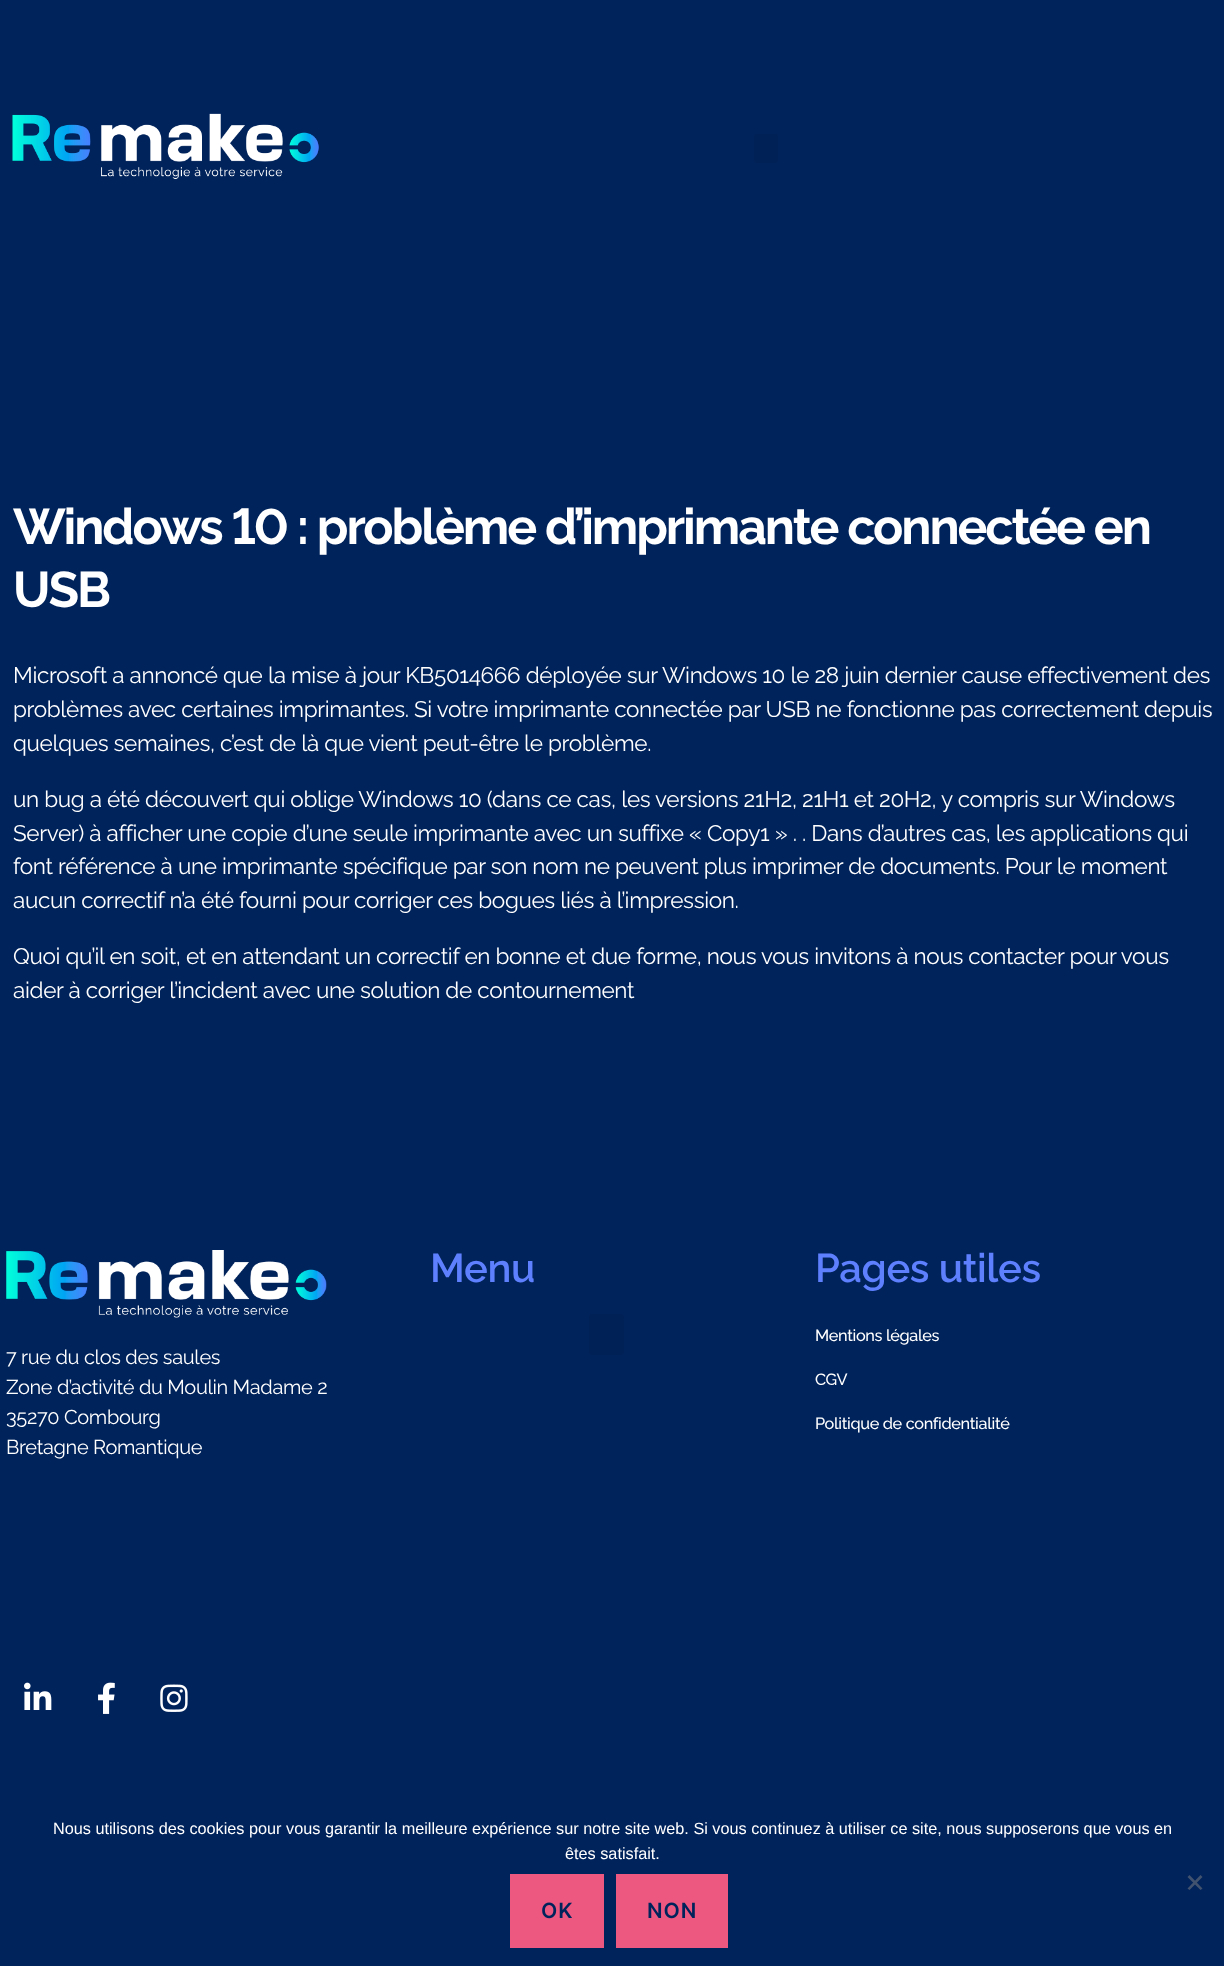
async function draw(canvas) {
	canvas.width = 1224;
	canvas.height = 1966;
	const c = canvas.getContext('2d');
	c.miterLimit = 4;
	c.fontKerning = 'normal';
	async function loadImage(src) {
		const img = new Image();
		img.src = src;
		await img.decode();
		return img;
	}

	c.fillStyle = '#00235b';
	c.fillRect(0, 0, 1224, 1966);
	c.drawImage(await loadImage('img1.png'), 12, 113, 307, 66);
	c.fillStyle = '#002156';
	c.beginPath();
	c.roundRect(754, 134, 24, 29, 4);
	c.fill();
	c.letterSpacing = '-2.1px';
	c.font = 'bold 50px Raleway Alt';
	c.fillStyle = '#fff';
	c.fillText('Windows 10 : problème d’imprimante connectée en', 13, 544);
	c.font = 'bold 50px Raleway';
	c.fillText('USB', 13, 607);
	c.letterSpacing = '-0.34px';
	c.font = '22.5px Raleway';
	for (const [text, x, y] of [
		['Microsoft a annoncé que la mise à jour KB5014666 déployée sur Windows 10 le 28 juin dernier cause effectivement des', 13, 683],
		['problèmes avec certaines imprimantes. Si votre imprimante connectée par USB ne fonctionne pas correctement depuis', 13, 717],
		['quelques semaines, c’est de là que vient peut-être le problème.', 13, 751],
		['un bug a été découvert qui oblige Windows 10 (dans ce cas, les versions 21H2, 21H1 et 20H2, y compris sur Windows', 13, 807],
		['Server) à afficher une copie d’une seule imprimante avec un suffixe « Copy1 » . . Dans d’autres cas, les applications qui', 13, 841],
		['font référence à une imprimante spécifique par son nom ne peuvent plus imprimer de documents. Pour le moment', 13, 874],
		['aucun correctif n’a été fourni pour corriger ces bogues liés à l’impression.', 13, 908],
		['Quoi qu’il en soit, et en attendant un correctif en bonne et due forme, nous vous invitons à nous contacter pour vous', 13, 964],
		['aider à corriger l’incident avec une solution de contournement', 13, 998],
	]) {
		c.fillText(text, x, y);
	}
	c.font = '600 40px Raleway';
	c.fillStyle = '#5e80ff';
	c.fillText('Menu', 430, 1282);
	c.fillStyle = '#002156';
	c.beginPath();
	c.roundRect(589, 1314, 35, 41, 4);
	c.fill();
	c.fillStyle = '#5e80ff';
	c.fillText('Pages utiles', 815, 1282);
	c.font = '500 16.25px Raleway';
	c.fillStyle = '#fff';
	for (const [text, x, y] of [
		['Mentions légales', 815, 1341],
		['CGV', 815, 1385],
		['Politique de confidentialité', 815, 1429],
	]) {
		c.fillText(text, x, y);
	}
	c.drawImage(await loadImage('img2.png'), 6, 1250, 321, 68);
	c.font = '20px Raleway';
	for (const [text, x, y] of [
		['7 rue du clos des saules', 6, 1364],
		['Zone d’activité du Moulin Madame 2', 6, 1394],
		['35270 Combourg', 6, 1424],
		['Bretagne Romantique', 6, 1454],
	]) {
		c.fillText(text, x, y);
	}
	c.drawImage(await loadImage('img3.png'), 24, 1682, 28, 28);
	c.drawImage(await loadImage('img4.png'), 98, 1682, 17, 32);
	c.drawImage(await loadImage('img5.png'), 160, 1684, 28, 28);
	c.letterSpacing = '0px';
	c.font = '16.25px Liberation Sans';
	c.fillText('Nous utilisons des cookies pour vous garantir la meilleure expérience sur notre site web. Si vous continuez à utiliser ce site, nous supposerons que vous en', 53, 1834);
	c.fillText('êtes satisfait.', 565, 1859);
	c.fillStyle = '#40526e';
	c.beginPath();
	c.moveTo(1200.5, 1875);
	c.lineTo(1202.5, 1877);
	c.lineTo(1189.5, 1890);
	c.lineTo(1187.5, 1888.5);
	c.closePath();
	c.fill();
	c.beginPath();
	c.moveTo(1187.5, 1877);
	c.lineTo(1189.5, 1875);
	c.lineTo(1202.5, 1888.5);
	c.lineTo(1200.5, 1890);
	c.closePath();
	c.fill();
	c.fillStyle = '#ed5880';
	c.fillRect(510, 1874, 94, 74);
	c.letterSpacing = '1px';
	c.font = '600 21px Inter';
	c.fillStyle = '#00235b';
	c.fillText('OK', 541, 1918);
	c.fillStyle = '#ed5880';
	c.fillRect(616, 1874, 112, 74);
	c.fillStyle = '#00235b';
	c.fillText('NON', 647, 1918);
}

draw(document.querySelector('canvas'));
